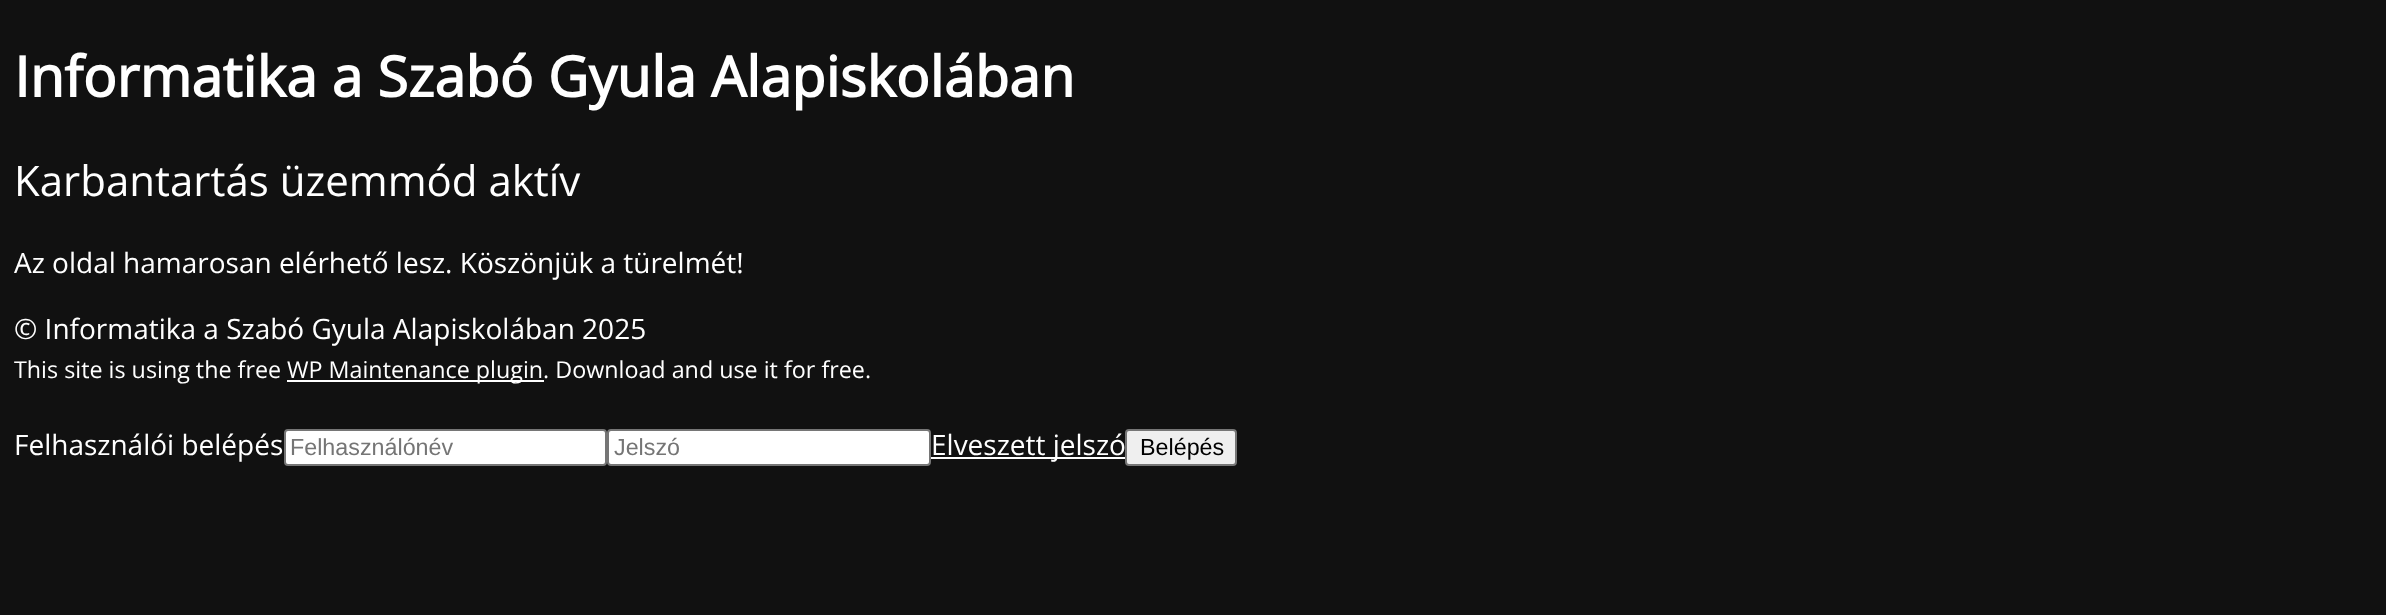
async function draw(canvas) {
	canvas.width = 2386;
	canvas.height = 615;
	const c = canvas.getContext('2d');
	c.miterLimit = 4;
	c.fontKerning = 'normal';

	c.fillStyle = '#111';
	c.fillRect(0, 0, 2386, 615);
	c.font = 'bold 56px Open Sans';
	c.fillStyle = '#fff';
	c.fillText('Informatika a Szabó Gyula Alapiskolában', 14, 97);
	c.font = '42px Open Sans';
	c.fillText('Karbantartás üzemmód aktív', 14, 196);
	c.font = '28px Open Sans';
	c.fillText('Az oldal hamarosan elérhető lesz. Köszönjük a türelmét!', 14, 273);
	c.fillText('© Informatika a Szabó Gyula Alapiskolában 2025', 14, 339);
	c.font = '23.3px Open Sans';
	c.fillText('This site is using the free', 14, 378);
	c.fillRect(287, 380, 257, 2);
	c.fillText('WP Maintenance plugin. Download and use it for free.', 287, 378);
	c.font = '28px Open Sans';
	c.fillText('Felhasználói belépés', 14, 455);
	c.beginPath();
	c.roundRect(285, 430, 321, 35, 3);
	c.fill();
	c.strokeStyle = '#767676';
	c.lineWidth = 2;
	c.stroke();
	c.font = '23.3px Liberation Sans';
	c.fillStyle = '#757575';
	c.fillText('Felhasználónév', 290, 455);
	c.fillStyle = '#fff';
	c.beginPath();
	c.roundRect(608, 430, 322, 35, 3);
	c.fill();
	c.stroke();
	c.fillStyle = '#757575';
	c.fillText('Jelszó', 614, 455);
	c.fillStyle = '#fff';
	c.fillRect(931, 457, 194, 2);
	c.font = '28px Open Sans';
	c.fillText('Elveszett jelszó', 931, 455);
	c.fillStyle = '#efefef';
	c.beginPath();
	c.roundRect(1126, 430, 110, 35, 3);
	c.fill();
	c.stroke();
	c.font = '23.3px Liberation Sans';
	c.fillStyle = '#000';
	c.fillText('Belépés', 1140, 455);
}

draw(document.querySelector('canvas'));
